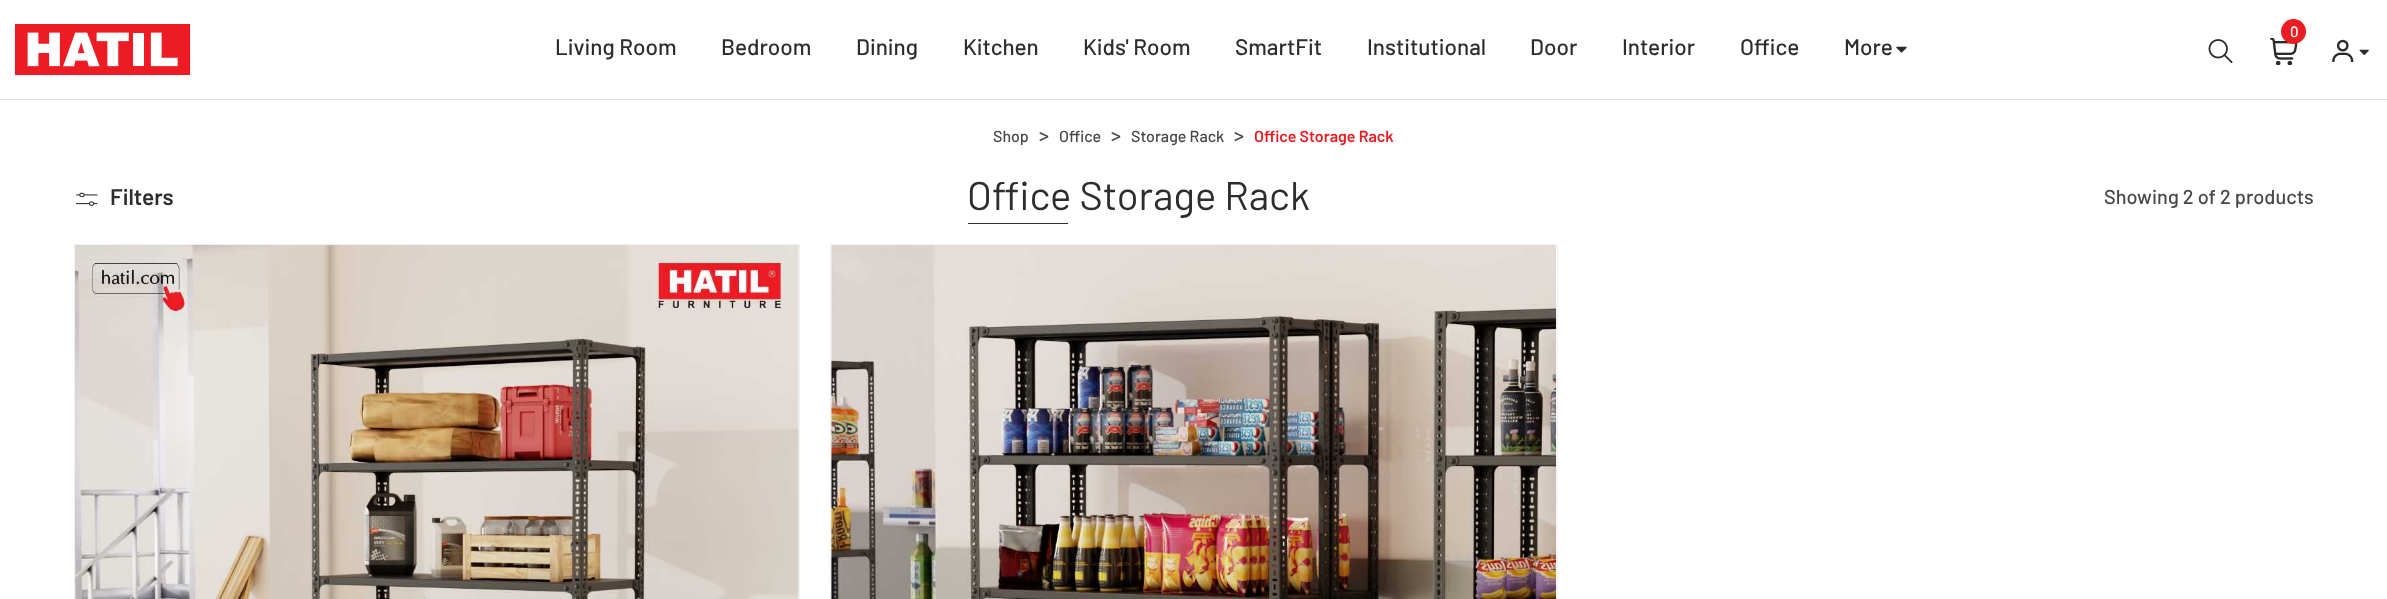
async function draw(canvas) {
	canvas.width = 2387;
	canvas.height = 599;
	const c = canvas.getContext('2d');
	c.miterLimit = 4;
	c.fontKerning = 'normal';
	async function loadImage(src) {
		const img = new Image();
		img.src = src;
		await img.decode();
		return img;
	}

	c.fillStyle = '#fff';
	c.fillRect(0, 0, 2387, 599);
	c.fillStyle = '#d9d9d9';
	c.fillRect(0, 99, 2387, 1);
	c.drawImage(await loadImage('img1.png'), 15, 24, 175, 51);
	c.drawImage(await loadImage('img2.png'), 2270, 38, 28, 27);
	c.fillStyle = '#eb1c23';
	c.beginPath();
	c.arc(2293.5, 31.5, 12.5, 0, 2 * Math.PI);
	c.fill();
	c.font = '500 15px Barlow';
	c.fillStyle = '#fff';
	c.fillText('0', 2290, 37);
	c.drawImage(await loadImage('img3.png'), 2208, 39, 25, 25);
	c.drawImage(await loadImage('img4.png'), 2332, 39, 22, 23);
	c.drawImage(await loadImage('img5.png'), 2359, 49, 10, 6);
	c.font = '500 22.5px Barlow';
	c.fillStyle = '#2d2d2d';
	for (const [text, x, y] of [
		['Living Room', 555, 55],
		['Bedroom', 721, 55],
		['Dining', 856, 55],
		['Kitchen', 963, 55],
		['Kids\' Room', 1083, 55],
		['SmartFit', 1235, 55],
		['Institutional', 1367, 55],
		['Door', 1530, 55],
		['Interior', 1622, 55],
		['Office', 1740, 55],
		['More', 1844, 55],
	]) {
		c.fillText(text, x, y);
	}
	c.drawImage(await loadImage('img6.png'), 1896, 46, 11, 7);
	c.font = '500 16px Barlow';
	c.fillStyle = '#474747';
	c.fillText('Shop', 993, 142);
	c.font = '500 20px Barlow';
	c.fillText('>', 1039, 142);
	c.font = '500 16px Barlow';
	c.fillText('Office', 1059, 142);
	c.font = '500 20px Barlow';
	c.fillText('>', 1111, 142);
	c.font = '500 16px Barlow';
	c.fillText('Storage Rack', 1131, 142);
	c.font = '500 20px Barlow';
	c.fillText('>', 1234, 142);
	c.font = '600 16px Barlow';
	c.fillStyle = '#eb1c23';
	c.fillText('Office Storage Rack', 1254, 142);
	c.drawImage(await loadImage('img7.png'), 76, 192, 22, 14);
	c.font = '600 22.5px Barlow';
	c.fillStyle = '#2d2d2d';
	c.fillText('Filters', 110, 205);
	c.font = '40px Barlow';
	c.fillText('Office Storage Rack', 967, 210);
	c.fillRect(968, 223, 100, 1);
	c.font = '500 20px Barlow';
	c.fillStyle = '#474747';
	c.fillText('Showing 2 of 2 products', 2104, 204);
	c.strokeStyle = '#f1f1f4';
	c.strokeRect(74.5, 244.5, 725, 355);
	c.drawImage(await loadImage('img8.png'), 75, 245, 724, 354);
	c.strokeRect(830.5, 244.5, 727, 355);
	c.drawImage(await loadImage('img9.png'), 831, 245, 726, 354);
}

draw(document.querySelector('canvas'));
